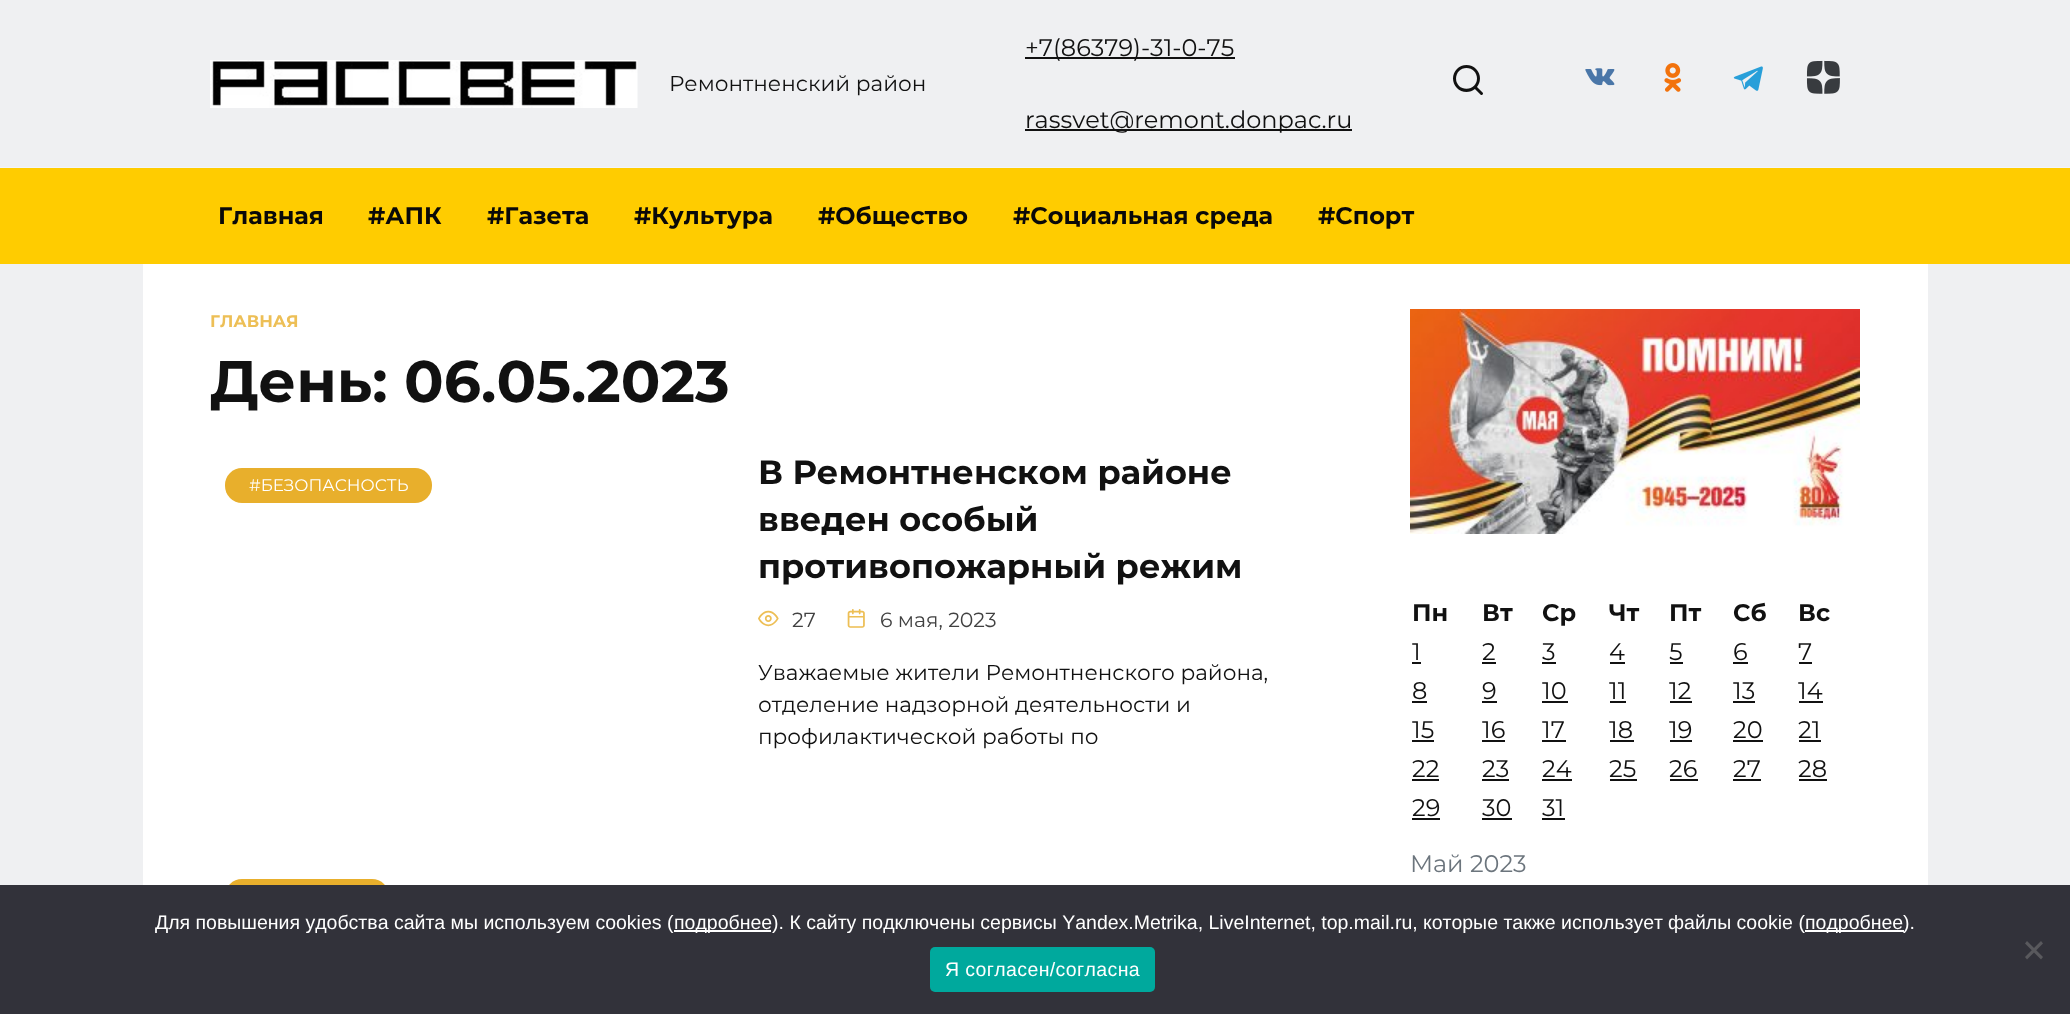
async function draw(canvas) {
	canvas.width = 2070;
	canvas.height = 1014;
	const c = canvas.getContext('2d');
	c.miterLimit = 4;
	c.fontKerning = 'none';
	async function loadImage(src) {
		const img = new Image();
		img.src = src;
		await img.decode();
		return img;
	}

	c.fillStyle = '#eff0f2';
	c.fillRect(0, 0, 2070, 1014);
	c.fillStyle = '#f2f5f9';
	c.fillRect(0, 167, 2070, 1);
	c.drawImage(await loadImage('img1.png'), 210, 60, 428, 48);
	c.font = '21.6px Montserrat';
	c.fillStyle = '#111';
	c.fillText('Ремонтненский район', 669, 91);
	c.fillRect(1025, 57, 210, 2);
	c.font = '24px Montserrat';
	c.fillText('+7(86379)-31-0-75', 1025, 56);
	c.fillRect(1025, 129, 327, 2);
	c.fillText('rassvet@remont.donpac.ru', 1025, 128);
	c.font = '36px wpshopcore';
	c.fillText('🔍', 1450, 95);
	c.drawImage(await loadImage('img2.png'), 1585, 68, 30, 18);
	c.drawImage(await loadImage('img3.png'), 1664, 63, 18, 29);
	c.drawImage(await loadImage('img4.png'), 1733, 66, 30, 25);
	c.drawImage(await loadImage('img5.png'), 1806, 60, 34, 34);
	c.fillStyle = '#fc0';
	c.fillRect(0, 168, 2070, 96);
	c.font = 'bold 24px Montserrat';
	c.fillStyle = '#0a0909';
	for (const [text, x, y] of [
		['Главная', 218, 224],
		['#АПК', 368, 224],
		['#Газета', 487, 224],
		['#Культура', 634, 224],
		['#Общество', 818, 224],
		['#Социальная среда', 1013, 224],
		['#Спорт', 1318, 224],
	]) {
		c.fillText(text, x, y);
	}
	c.fillStyle = '#fff';
	c.fillRect(143, 264, 1785, 621);
	c.font = 'bold 16.75px Montserrat';
	c.fillStyle = '#edbf56';
	c.fillText('ГЛАВНАЯ', 210, 327);
	c.font = 'bold 58.5px Montserrat';
	c.fillStyle = '#111';
	c.fillText('День: 06.05.2023', 210, 402);
	c.fillStyle = '#e8af2c';
	c.beginPath();
	c.roundRect(225, 468, 207, 35, 17);
	c.fill();
	c.font = '16.75px Montserrat';
	c.fillStyle = '#fff';
	c.fillText('#БЕЗОПАСНОСТЬ', 249, 491);
	c.font = 'bold 33.6px Montserrat';
	c.fillStyle = '#111';
	for (const [text, x, y] of [
		['В Ремонтненском районе', 758, 484],
		['введен особый', 758, 531],
		['противопожарный режим', 758, 578],
	]) {
		c.fillText(text, x, y);
	}
	c.font = '20.5px wpshopcore';
	c.fillStyle = '#edbf56';
	c.fillText('👀', 758, 627);
	c.font = '20.5px Montserrat';
	c.fillStyle = '#414141';
	c.fillText('27', 792, 627);
	c.font = '20.5px wpshopcore';
	c.fillStyle = '#edbf56';
	c.fillText('📅', 846, 627);
	c.font = '20.5px Montserrat';
	c.fillStyle = '#414141';
	c.fillText('6 мая, 2023', 880, 627);
	c.font = '21.6px Montserrat';
	c.fillStyle = '#111';
	for (const [text, x, y] of [
		['Уважаемые жители Ремонтненского района,', 758, 680],
		['отделение надзорной деятельности и', 758, 712],
		['профилактической работы по', 758, 744],
	]) {
		c.fillText(text, x, y);
	}
	c.fillStyle = '#e8af2c';
	c.beginPath();
	c.roundRect(225, 879, 164, 35, 17);
	c.fill();
	c.drawImage(await loadImage('img6.png'), 1410, 309, 450, 225);
	c.font = 'bold 24px Montserrat';
	c.fillStyle = '#111';
	for (const [text, x, y] of [
		['Пн', 1412, 621],
		['Вт', 1482, 621],
		['Ср', 1542, 621],
		['Чт', 1609, 621],
		['Пт', 1669, 621],
		['Сб', 1733, 621],
		['Вс', 1798, 621],
	]) {
		c.fillText(text, x, y);
	}
	c.font = '24px Montserrat';
	c.fillText('1', 1412, 660);
	c.fillRect(1412, 662, 9, 2);
	c.fillText('2', 1482, 660);
	c.fillRect(1482, 662, 14, 2);
	c.fillText('3', 1542, 660);
	c.fillRect(1542, 662, 14, 2);
	c.fillText('4', 1609, 660);
	c.fillRect(1610, 662, 15, 2);
	c.fillText('5', 1669, 660);
	c.fillRect(1670, 662, 13, 2);
	c.fillText('6', 1733, 660);
	c.fillRect(1733, 662, 15, 2);
	c.fillText('7', 1798, 660);
	c.fillRect(1799, 662, 13, 2);
	c.fillText('8', 1412, 699);
	c.fillRect(1412, 701, 15, 2);
	c.fillText('9', 1482, 699);
	c.fillRect(1482, 701, 15, 2);
	c.fillText('10', 1542, 699);
	c.fillRect(1542, 701, 26, 2);
	c.fillText('11', 1609, 699);
	c.fillRect(1610, 701, 16, 2);
	c.fillText('12', 1669, 699);
	c.fillRect(1670, 701, 22, 2);
	c.fillText('13', 1733, 699);
	c.fillRect(1733, 701, 22, 2);
	c.fillText('14', 1798, 699);
	c.fillRect(1799, 701, 24, 2);
	c.fillText('15', 1412, 738);
	c.fillRect(1412, 740, 22, 2);
	c.fillText('16', 1482, 738);
	c.fillRect(1482, 740, 23, 2);
	c.fillText('17', 1542, 738);
	c.fillRect(1542, 740, 24, 2);
	c.fillText('18', 1609, 738);
	c.fillRect(1610, 740, 24, 2);
	c.fillText('19', 1669, 738);
	c.fillRect(1670, 740, 22, 2);
	c.fillText('20', 1733, 738);
	c.fillRect(1733, 740, 30, 2);
	c.fillText('21', 1798, 738);
	c.fillRect(1799, 740, 22, 2);
	c.fillText('22', 1412, 777);
	c.fillRect(1412, 779, 27, 2);
	c.fillText('23', 1482, 777);
	c.fillRect(1482, 779, 27, 2);
	c.fillText('24', 1542, 777);
	c.fillRect(1542, 779, 30, 2);
	c.fillText('25', 1609, 777);
	c.fillRect(1610, 779, 27, 2);
	c.fillText('26', 1669, 777);
	c.fillRect(1670, 779, 28, 2);
	c.fillText('27', 1733, 777);
	c.fillRect(1733, 779, 28, 2);
	c.fillText('28', 1798, 777);
	c.fillRect(1799, 779, 28, 2);
	c.fillText('29', 1412, 816);
	c.fillRect(1412, 818, 28, 2);
	c.fillText('30', 1482, 816);
	c.fillRect(1482, 818, 30, 2);
	c.fillText('31', 1542, 816);
	c.fillRect(1542, 818, 23, 2);
	c.fillStyle = '#6c757d';
	c.fillText('Май 2023', 1410, 872);
	c.fillStyle = '#32323a';
	c.fillRect(0, 885, 2070, 129);
	c.font = '19.5px Liberation Sans';
	c.fillStyle = '#fff';
	c.fillText('Для повышения удобства сайта мы используем cookies (', 155, 929);
	c.fillRect(674, 930, 97, 2);
	c.fillText('подробнее). К сайту подключены сервисы Yandex.Metrika, LiveInternet, top.mail.ru, которые также использует', 674, 929);
	c.fillText('файлы cookie (', 1668, 929);
	c.fillRect(1805, 930, 99, 2);
	c.fillText('подробнее).', 1805, 929);
	c.fillStyle = '#59595d';
	c.beginPath();
	c.moveTo(2041, 941);
	c.lineTo(2043, 943.5);
	c.lineTo(2027, 959.5);
	c.lineTo(2025, 957);
	c.closePath();
	c.fill();
	c.beginPath();
	c.moveTo(2025, 943.5);
	c.lineTo(2027, 941);
	c.lineTo(2043, 957);
	c.lineTo(2041, 959.5);
	c.closePath();
	c.fill();
	c.fillStyle = '#00a99d';
	c.beginPath();
	c.roundRect(930, 947, 225, 45, 5);
	c.fill();
	c.letterSpacing = '0.4px';
	c.fillStyle = '#fff';
	c.fillText('Я согласен/согласна', 945, 976);
}

draw(document.querySelector('canvas'));
